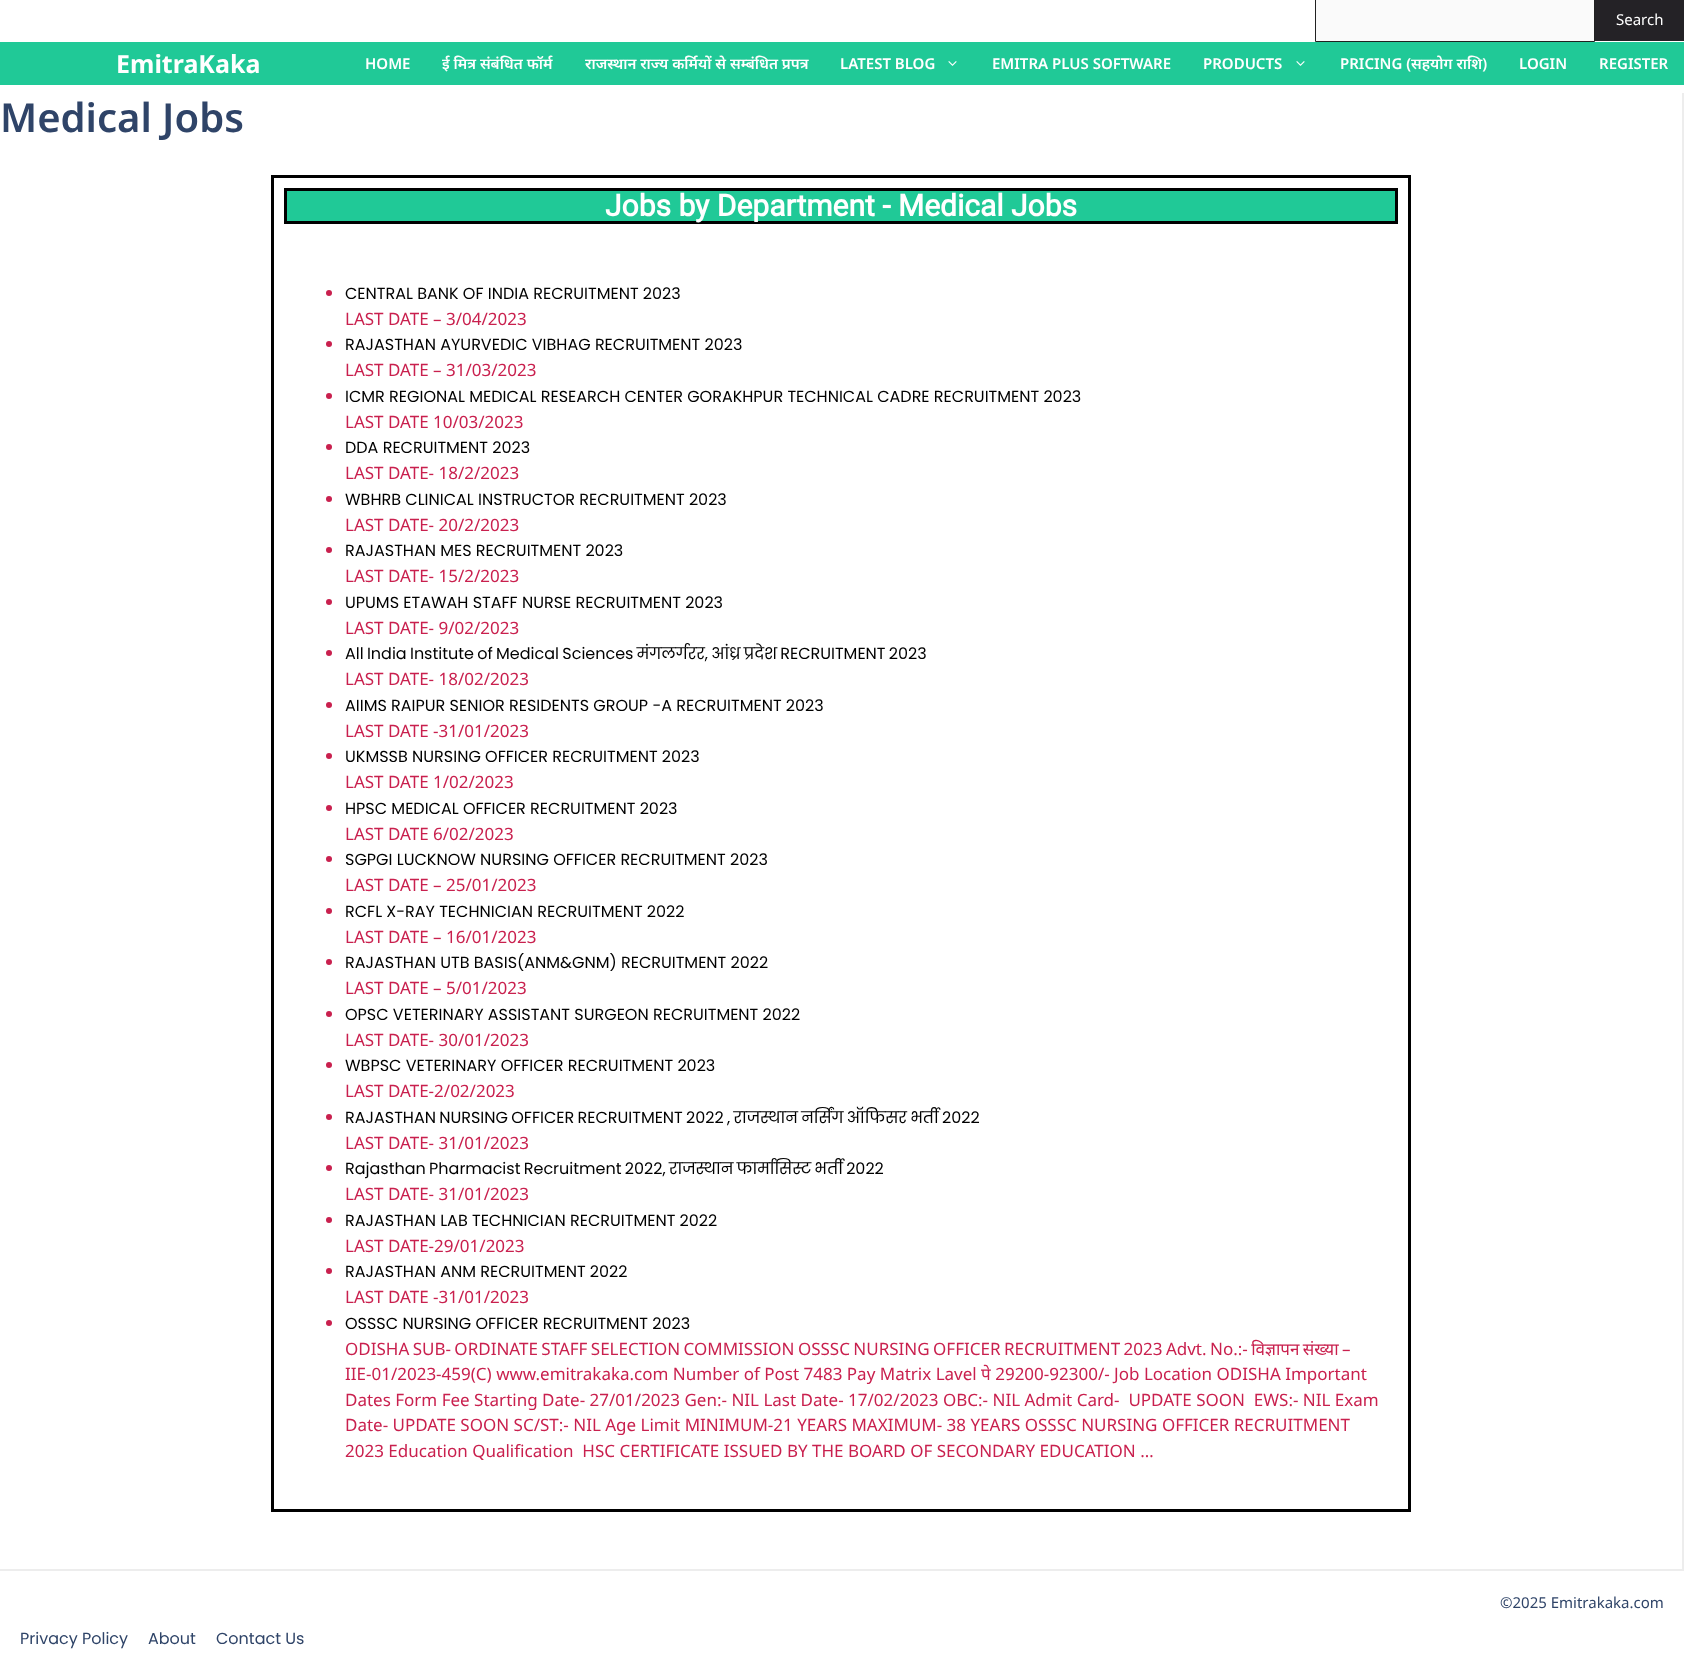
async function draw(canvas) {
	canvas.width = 1684;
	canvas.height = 1668;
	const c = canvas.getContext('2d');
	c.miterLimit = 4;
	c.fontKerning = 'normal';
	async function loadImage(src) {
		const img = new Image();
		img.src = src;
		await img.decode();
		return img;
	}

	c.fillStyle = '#fff';
	c.fillRect(0, 0, 1684, 1668);
	c.fillStyle = '#fafafa';
	c.beginPath();
	c.rect(1315.5, -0.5, 279, 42);
	c.fill();
	c.strokeStyle = '#212121';
	c.stroke();
	c.fillStyle = '#242226';
	c.fillRect(1595, 0, 89, 41);
	c.font = '15px Noto Sans';
	c.fillStyle = '#fff';
	c.fillText('Search', 1616, 25);
	c.fillStyle = '#20c997';
	c.fillRect(0, 42, 1684, 43);
	c.font = 'bold 25px Noto Sans';
	c.fillStyle = '#fff';
	c.fillText('EmitraKaka', 116, 73);
	c.font = '600 15px Noto Sans';
	for (const [text, x, y] of [
		['HOME', 365, 69],
		['ई मित्र संबंधित फॉर्म', 442, 69],
		['राजस्थान राज्य कर्मियों से सम्बंधित प्रपत्र', 585, 69],
		['LATEST BLOG', 840, 69],
	]) {
		c.fillText(text, x, y);
	}
	c.drawImage(await loadImage('img1.png'), 948, 61, 9, 5);
	c.fillText('EMITRA PLUS SOFTWARE', 992, 69);
	c.fillText('PRODUCTS', 1203, 69);
	c.drawImage(await loadImage('img1.png'), 1296, 61, 9, 5);
	for (const [text, x, y] of [
		['PRICING (सहयोग राशि)', 1340, 69],
		['LOGIN', 1519, 69],
		['REGISTER', 1599, 69],
	]) {
		c.fillText(text, x, y);
	}
	c.fillStyle = '#ededed';
	c.beginPath();
	c.moveTo(1684, 93);
	c.lineTo(1684, 1571);
	c.lineTo(1682, 1569);
	c.lineTo(1682, 93);
	c.closePath();
	c.fill();
	c.fillStyle = '#00000012';
	c.beginPath();
	c.moveTo(1684, 1571);
	c.lineTo(0, 1571);
	c.lineTo(0, 1569);
	c.lineTo(1682, 1569);
	c.closePath();
	c.fill();
	c.font = '600 40px Noto Sans';
	c.fillStyle = '#2f4468';
	c.fillText('Medical Jobs', 0, 132);
	c.strokeStyle = '#000';
	c.lineWidth = 3;
	c.strokeRect(272.5, 176.5, 1137, 1334);
	c.fillStyle = '#20c997';
	c.beginPath();
	c.rect(285.5, 189.5, 1111, 33);
	c.fill();
	c.stroke();
	c.font = 'bold 30px Roboto';
	c.fillStyle = '#fff';
	c.fillText('Jobs by Department - Medical Jobs', 605, 216);
	c.fillStyle = '#c9204e';
	c.beginPath();
	c.arc(329, 293, 3, 0, 2 * Math.PI);
	c.fill();
	c.font = '16px Poppins';
	c.fillStyle = '#000';
	c.fillText('CENTRAL BANK OF INDIA RECRUITMENT 2023', 345, 299);
	c.font = '17px Noto Sans';
	c.fillStyle = '#c9204e';
	c.fillText('LAST DATE – 3/04/2023', 345, 325);
	c.beginPath();
	c.arc(329, 344, 3, 0, 2 * Math.PI);
	c.fill();
	c.font = '16px Poppins';
	c.fillStyle = '#000';
	c.fillText('RAJASTHAN AYURVEDIC VIBHAG RECRUITMENT 2023', 345, 350);
	c.font = '17px Noto Sans';
	c.fillStyle = '#c9204e';
	c.fillText('LAST DATE – 31/03/2023', 345, 376);
	c.beginPath();
	c.arc(329, 396, 3, 0, 2 * Math.PI);
	c.fill();
	c.font = '16px Poppins';
	c.fillStyle = '#000';
	c.fillText('ICMR REGIONAL MEDICAL RESEARCH CENTER GORAKHPUR TECHNICAL CADRE RECRUITMENT 2023', 345, 402);
	c.font = '17px Noto Sans';
	c.fillStyle = '#c9204e';
	c.fillText('LAST DATE 10/03/2023', 345, 428);
	c.beginPath();
	c.arc(329, 447, 3, 0, 2 * Math.PI);
	c.fill();
	c.font = '16px Poppins';
	c.fillStyle = '#000';
	c.fillText('DDA RECRUITMENT 2023', 345, 453);
	c.font = '17px Noto Sans';
	c.fillStyle = '#c9204e';
	c.fillText('LAST DATE- 18/2/2023', 345, 479);
	c.beginPath();
	c.arc(329, 499, 3, 0, 2 * Math.PI);
	c.fill();
	c.font = '16px Poppins';
	c.fillStyle = '#000';
	c.fillText('WBHRB CLINICAL INSTRUCTOR RECRUITMENT 2023', 345, 505);
	c.font = '17px Noto Sans';
	c.fillStyle = '#c9204e';
	c.fillText('LAST DATE- 20/2/2023', 345, 531);
	c.beginPath();
	c.arc(329, 550, 3, 0, 2 * Math.PI);
	c.fill();
	c.font = '16px Poppins';
	c.fillStyle = '#000';
	c.fillText('RAJASTHAN MES RECRUITMENT 2023', 345, 556);
	c.font = '17px Noto Sans';
	c.fillStyle = '#c9204e';
	c.fillText('LAST DATE- 15/2/2023', 345, 582);
	c.beginPath();
	c.arc(329, 602, 3, 0, 2 * Math.PI);
	c.fill();
	c.font = '16px Poppins';
	c.fillStyle = '#000';
	c.fillText('UPUMS ETAWAH STAFF NURSE RECRUITMENT 2023', 345, 608);
	c.font = '17px Noto Sans';
	c.fillStyle = '#c9204e';
	c.fillText('LAST DATE- 9/02/2023', 345, 634);
	c.beginPath();
	c.arc(329, 653, 3, 0, 2 * Math.PI);
	c.fill();
	c.wordSpacing = '-1px';
	c.font = '16px Poppins';
	c.fillStyle = '#000';
	c.fillText('All India Institute of Medical Sciences मंगलर्गरर, आंध्र प्रदेश RECRUITMENT 2023', 345, 659);
	c.wordSpacing = '0px';
	c.font = '17px Noto Sans';
	c.fillStyle = '#c9204e';
	c.fillText('LAST DATE- 18/02/2023', 345, 685);
	c.beginPath();
	c.arc(329, 705, 3, 0, 2 * Math.PI);
	c.fill();
	c.font = '16px Poppins';
	c.fillStyle = '#000';
	c.fillText('AIIMS RAIPUR SENIOR RESIDENTS GROUP -A RECRUITMENT 2023', 345, 711);
	c.font = '17px Noto Sans';
	c.fillStyle = '#c9204e';
	c.fillText('LAST DATE -31/01/2023', 345, 737);
	c.beginPath();
	c.arc(329, 756, 3, 0, 2 * Math.PI);
	c.fill();
	c.font = '16px Poppins';
	c.fillStyle = '#000';
	c.fillText('UKMSSB NURSING OFFICER RECRUITMENT 2023', 345, 762);
	c.font = '17px Noto Sans';
	c.fillStyle = '#c9204e';
	c.fillText('LAST DATE 1/02/2023', 345, 788);
	c.beginPath();
	c.arc(329, 808, 3, 0, 2 * Math.PI);
	c.fill();
	c.font = '16px Poppins';
	c.fillStyle = '#000';
	c.fillText('HPSC MEDICAL OFFICER RECRUITMENT 2023', 345, 814);
	c.font = '17px Noto Sans';
	c.fillStyle = '#c9204e';
	c.fillText('LAST DATE 6/02/2023', 345, 840);
	c.beginPath();
	c.arc(329, 859, 3, 0, 2 * Math.PI);
	c.fill();
	c.font = '16px Poppins';
	c.fillStyle = '#000';
	c.fillText('SGPGI LUCKNOW NURSING OFFICER RECRUITMENT 2023', 345, 865);
	c.font = '17px Noto Sans';
	c.fillStyle = '#c9204e';
	c.fillText('LAST DATE – 25/01/2023', 345, 891);
	c.beginPath();
	c.arc(329, 911, 3, 0, 2 * Math.PI);
	c.fill();
	c.font = '16px Poppins';
	c.fillStyle = '#000';
	c.fillText('RCFL X-RAY TECHNICIAN RECRUITMENT 2022', 345, 917);
	c.font = '17px Noto Sans';
	c.fillStyle = '#c9204e';
	c.fillText('LAST DATE – 16/01/2023', 345, 943);
	c.beginPath();
	c.arc(329, 962, 3, 0, 2 * Math.PI);
	c.fill();
	c.font = '16px Poppins';
	c.fillStyle = '#000';
	c.fillText('RAJASTHAN UTB BASIS(ANM&GNM) RECRUITMENT 2022', 345, 968);
	c.font = '17px Noto Sans';
	c.fillStyle = '#c9204e';
	c.fillText('LAST DATE – 5/01/2023', 345, 994);
	c.beginPath();
	c.arc(329, 1014, 3, 0, 2 * Math.PI);
	c.fill();
	c.font = '16px Poppins';
	c.fillStyle = '#000';
	c.fillText('OPSC VETERINARY ASSISTANT SURGEON RECRUITMENT 2022', 345, 1020);
	c.font = '17px Noto Sans';
	c.fillStyle = '#c9204e';
	c.fillText('LAST DATE- 30/01/2023', 345, 1046);
	c.beginPath();
	c.arc(329, 1065, 3, 0, 2 * Math.PI);
	c.fill();
	c.font = '16px Poppins';
	c.fillStyle = '#000';
	c.fillText('WBPSC VETERINARY OFFICER RECRUITMENT 2023', 345, 1071);
	c.font = '17px Noto Sans';
	c.fillStyle = '#c9204e';
	c.fillText('LAST DATE-2/02/2023', 345, 1097);
	c.beginPath();
	c.arc(329, 1117, 3, 0, 2 * Math.PI);
	c.fill();
	c.wordSpacing = '-1px';
	c.font = '16px Poppins';
	c.fillStyle = '#000';
	c.fillText('RAJASTHAN NURSING OFFICER RECRUITMENT 2022 , राजस्थान नर्सिंग ऑफिसर भर्ती 2022', 345, 1123);
	c.wordSpacing = '0px';
	c.font = '17px Noto Sans';
	c.fillStyle = '#c9204e';
	c.fillText('LAST DATE- 31/01/2023', 345, 1149);
	c.beginPath();
	c.arc(329, 1168, 3, 0, 2 * Math.PI);
	c.fill();
	c.wordSpacing = '-1px';
	c.font = '16px Poppins';
	c.fillStyle = '#000';
	c.fillText('Rajasthan Pharmacist Recruitment 2022, राजस्थान फार्मासिस्ट भर्ती 2022', 345, 1174);
	c.wordSpacing = '0px';
	c.font = '17px Noto Sans';
	c.fillStyle = '#c9204e';
	c.fillText('LAST DATE- 31/01/2023', 345, 1200);
	c.beginPath();
	c.arc(329, 1220, 3, 0, 2 * Math.PI);
	c.fill();
	c.font = '16px Poppins';
	c.fillStyle = '#000';
	c.fillText('RAJASTHAN LAB TECHNICIAN RECRUITMENT 2022', 345, 1226);
	c.font = '17px Noto Sans';
	c.fillStyle = '#c9204e';
	c.fillText('LAST DATE-29/01/2023', 345, 1252);
	c.beginPath();
	c.arc(329, 1271, 3, 0, 2 * Math.PI);
	c.fill();
	c.font = '16px Poppins';
	c.fillStyle = '#000';
	c.fillText('RAJASTHAN ANM RECRUITMENT 2022', 345, 1277);
	c.font = '17px Noto Sans';
	c.fillStyle = '#c9204e';
	c.fillText('LAST DATE -31/01/2023', 345, 1303);
	c.beginPath();
	c.arc(329, 1323, 3, 0, 2 * Math.PI);
	c.fill();
	c.font = '16px Poppins';
	c.fillStyle = '#000';
	c.fillText('OSSSC NURSING OFFICER RECRUITMENT 2023', 345, 1329);
	c.wordSpacing = '-1px';
	c.font = '17px Noto Sans';
	c.fillStyle = '#c9204e';
	c.fillText('ODISHA SUB- ORDINATE STAFF SELECTION COMMISSION OSSSC NURSING OFFICER RECRUITMENT 2023 Advt. No.:- विज्ञापन संख्या –', 345, 1355);
	c.wordSpacing = '0px';
	for (const [text, x, y] of [
		['IIE-01/2023-459(C) www.emitrakaka.com Number of Post 7483 Pay Matrix Lavel पे 29200-92300/- Job Location ODISHA Important', 345, 1380],
		['Dates Form Fee Starting Date- 27/01/2023 Gen:- NIL Last Date- 17/02/2023 OBC:- NIL Admit Card-  UPDATE SOON  EWS:- NIL Exam', 345, 1406],
		['Date- UPDATE SOON SC/ST:- NIL Age Limit MINIMUM-21 YEARS MAXIMUM- 38 YEARS OSSSC NURSING OFFICER RECRUITMENT', 345, 1431],
		['2023 Education Qualification  HSC CERTIFICATE ISSUED BY THE BOARD OF SECONDARY EDUCATION …', 345, 1457],
	]) {
		c.fillText(text, x, y);
	}
	c.font = '15px Noto Sans';
	c.fillStyle = '#2f4468';
	c.fillText('©2025 Emitrakaka.com', 1500, 1608);
	c.font = '16px Poppins';
	for (const [text, x, y] of [
		['Privacy Policy', 20, 1644],
		['About', 148, 1644],
		['Contact Us', 216, 1644],
	]) {
		c.fillText(text, x, y);
	}
}

draw(document.querySelector('canvas'));
